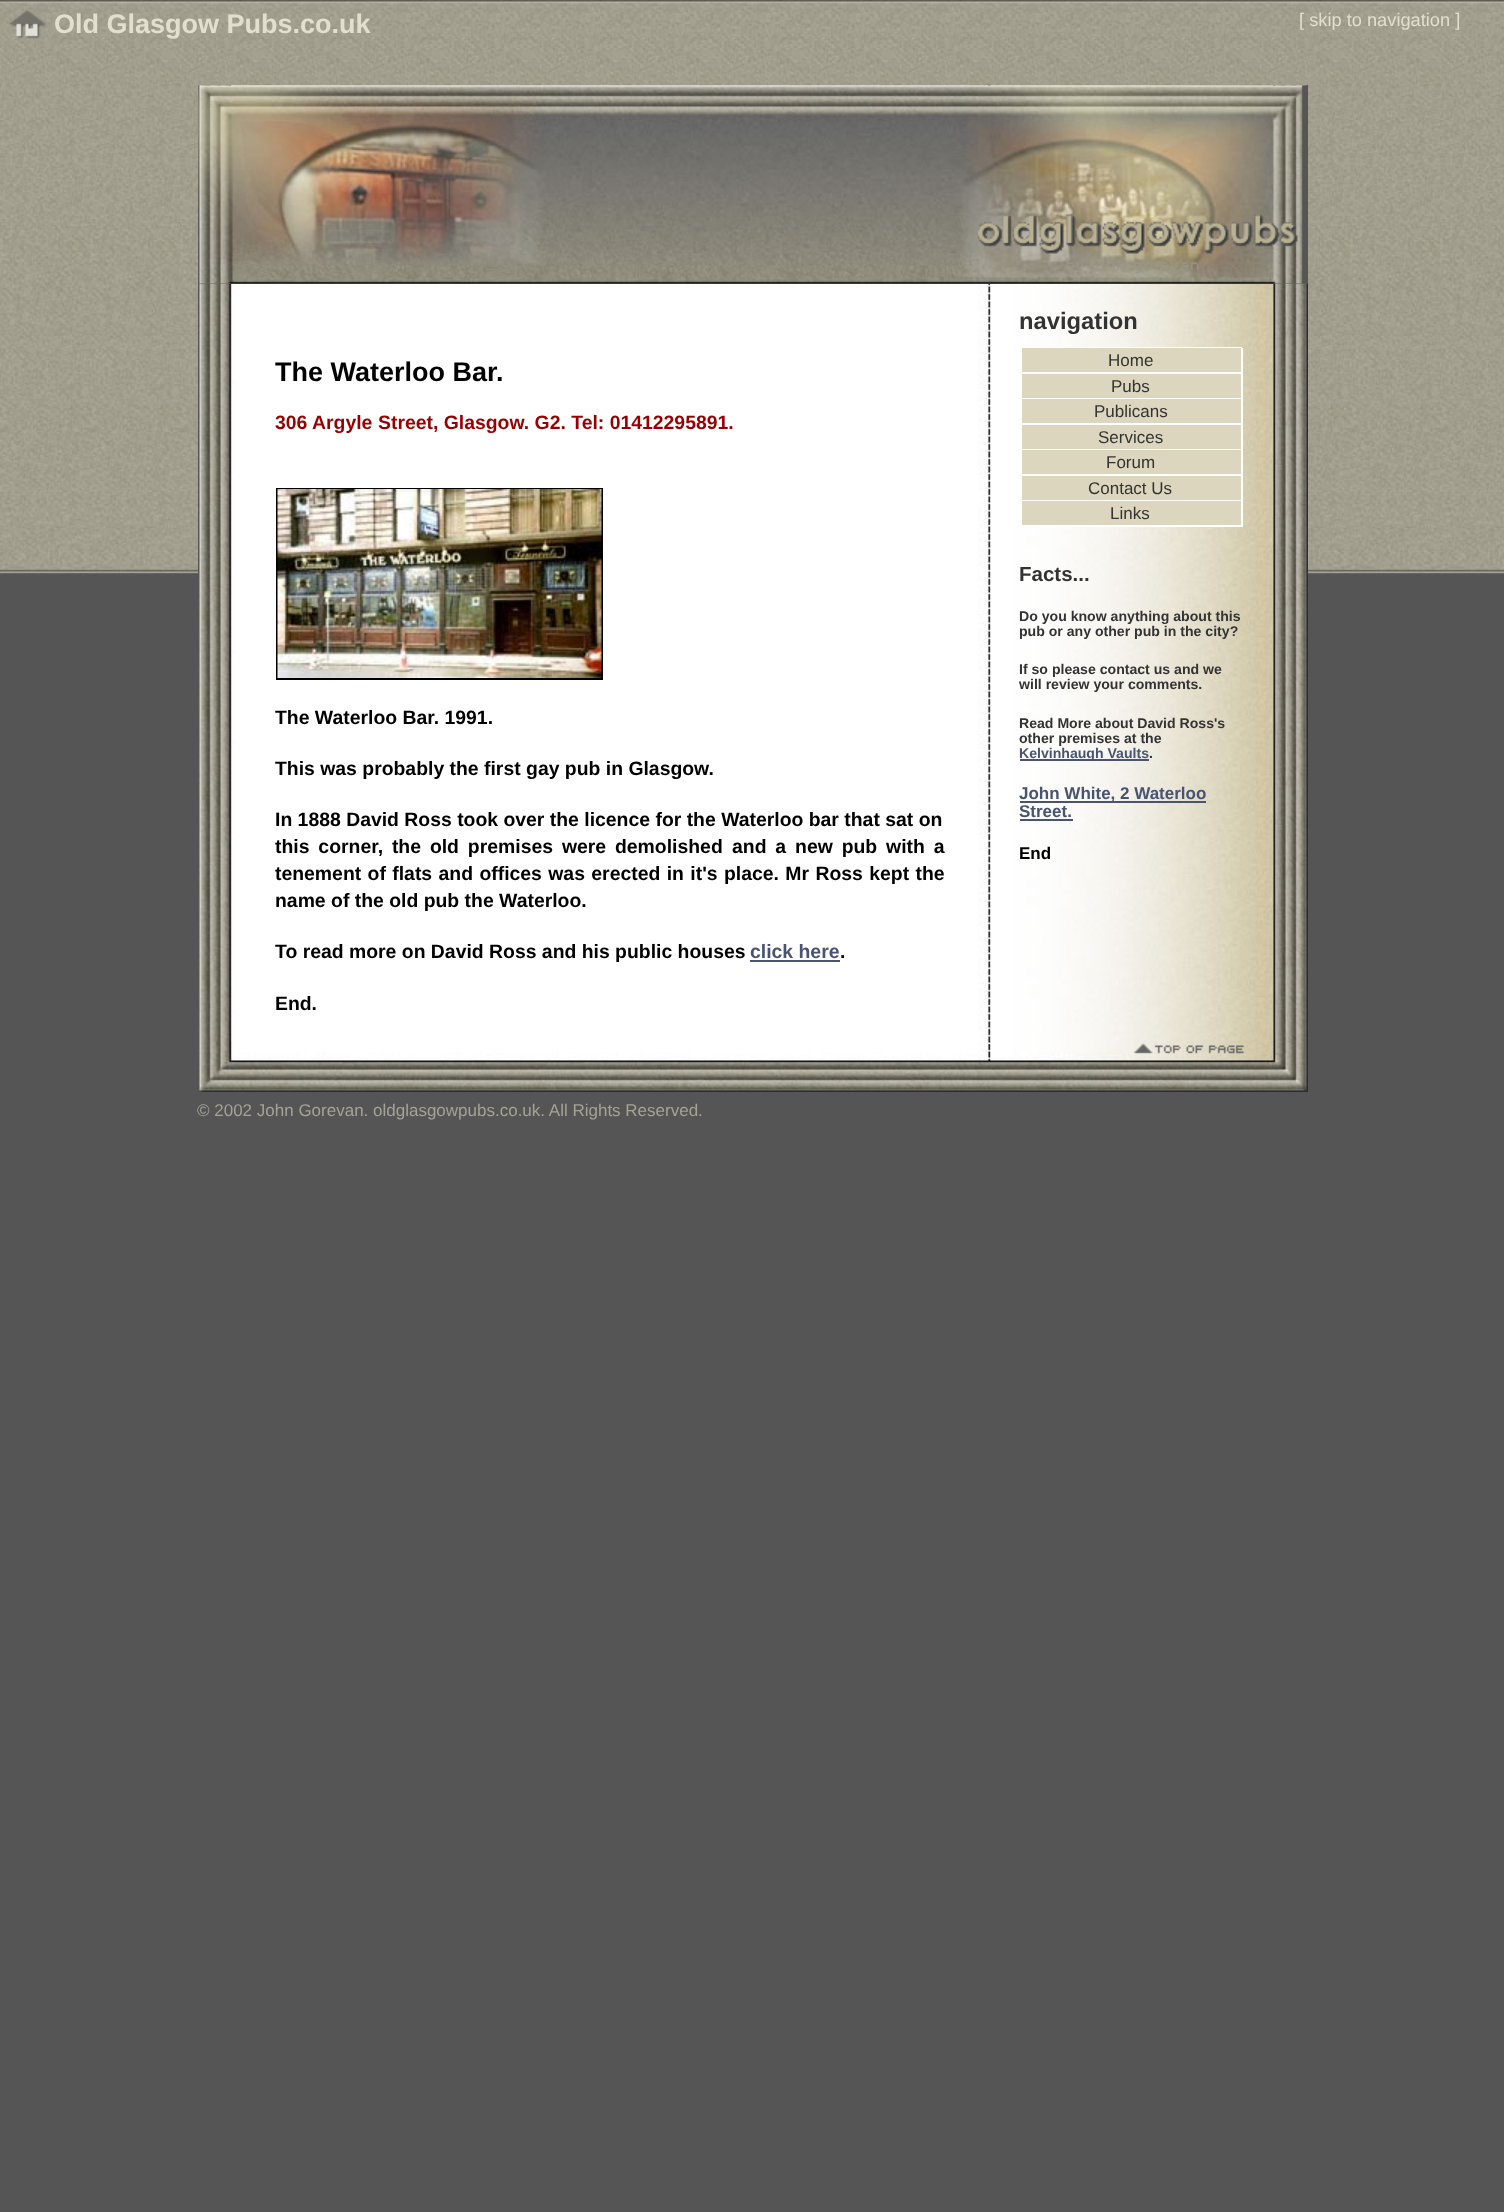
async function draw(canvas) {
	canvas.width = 1504;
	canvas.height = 2212;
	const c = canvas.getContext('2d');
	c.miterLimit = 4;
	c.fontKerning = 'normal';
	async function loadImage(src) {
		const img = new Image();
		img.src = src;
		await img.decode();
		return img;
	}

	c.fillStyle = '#555';
	c.fillRect(0, 0, 1504, 2212);
	c.drawImage(await loadImage('img1.png'), 0, 0, 1504, 576);
	c.drawImage(await loadImage('img2.png'), 9, 10, 39, 29);
	c.font = 'bold 27px Liberation Sans';
	c.fillStyle = '#e2dfcd';
	c.fillText('Old Glasgow Pubs.co.uk', 54, 33);
	c.font = '18.25px Liberation Sans';
	c.fillText('[ skip to navigation ]', 1299, 26);
	c.drawImage(await loadImage('img3.png'), 198, 85, 1110, 956);
	c.fillStyle = '#656565';
	c.fillRect(198, 283, 1110, 1);
	c.drawImage(await loadImage('img4.png'), 198, 85, 1110, 199);
	c.drawImage(await loadImage('img5.png'), 977, 85, 331, 199);
	c.font = 'bold 27px Liberation Sans';
	c.fillStyle = '#000';
	c.fillText('The Waterloo Bar.', 275, 381);
	c.font = 'bold 19.4px Liberation Sans';
	c.fillStyle = '#900';
	c.fillText('306 Argyle', 275, 429);
	c.fillText('Street, Glasgow. G2. Tel: 01412295891.', 378, 429);
	c.strokeStyle = '#000';
	c.lineWidth = 2;
	c.strokeRect(277, 489, 325, 190);
	c.drawImage(await loadImage('img6.png'), 277, 489, 325, 189);
	c.fillStyle = '#000';
	for (const [text, x, y] of [
		['The Waterloo Bar. 1991.', 275, 724],
		['This was probably the first gay pub in Glasgow.', 275, 775],
		['In 1888 David Ross took over the licence for the Waterloo bar that sat on', 275, 826],
	]) {
		c.fillText(text, x, y);
	}
	c.wordSpacing = '3.5px';
	c.fillText('this corner, the old premises were demolished', 275, 853);
	c.fillText('and a new pub with a', 732, 853);
	c.wordSpacing = '1px';
	c.fillText('tenement of flats and offices was erected in it\'s', 275, 880);
	c.fillText('place. Mr Ross kept the', 724, 880);
	c.wordSpacing = '0px';
	c.fillText('name of the old pub the Waterloo.', 275, 907);
	c.fillText('To read more on David Ross and his public houses', 275, 958);
	c.fillStyle = '#495472';
	c.fillText('click here', 750, 958);
	c.fillRect(750, 960, 90, 2);
	c.fillStyle = '#000';
	c.fillText('.', 840, 958);
	c.fillText('End.', 275, 1010);
	c.font = 'bold 23.75px Liberation Sans';
	c.fillStyle = '#333';
	c.fillText('navigation', 1019, 329);
	for (const [x, y, w, h, color] of [
		[1038, 347, 204, 1, '#fff'],
		[1022, 348, 219, 24, '#dcd6be'],
		[1241, 348, 2, 179, '#fff'],
		[1038, 372, 204, 2, '#fff'],
	]) {
		c.fillStyle = color;
		c.fillRect(x, y, w, h);
	}
	c.font = '17px Liberation Sans';
	c.fillStyle = '#333';
	c.fillText('Home', 1108, 366);
	c.fillStyle = '#dcd6be';
	c.fillRect(1022, 374, 219, 24);
	c.fillStyle = '#fff';
	c.fillRect(1020, 398, 222, 1);
	c.fillStyle = '#333';
	c.fillText('Pubs', 1111, 392);
	c.fillStyle = '#dcd6be';
	c.fillRect(1022, 399, 219, 24);
	c.fillStyle = '#fff';
	c.fillRect(1020, 423, 222, 2);
	c.fillStyle = '#333';
	c.fillText('Publicans', 1094, 417);
	c.fillStyle = '#dcd6be';
	c.fillRect(1022, 425, 219, 24);
	c.fillStyle = '#fff';
	c.fillRect(1020, 449, 222, 1);
	c.fillStyle = '#333';
	c.fillText('Services', 1098, 443);
	c.fillStyle = '#dcd6be';
	c.fillRect(1022, 450, 219, 24);
	c.fillStyle = '#fff';
	c.fillRect(1020, 474, 222, 2);
	c.fillStyle = '#333';
	c.fillText('Forum', 1106, 468);
	c.fillStyle = '#dcd6be';
	c.fillRect(1022, 476, 219, 24);
	c.fillStyle = '#fff';
	c.fillRect(1020, 500, 222, 1);
	c.fillStyle = '#333';
	c.fillText('Contact Us', 1088, 494);
	c.fillStyle = '#dcd6be';
	c.fillRect(1022, 501, 219, 24);
	c.fillStyle = '#fff';
	c.fillRect(1038, 525, 204, 2);
	c.fillStyle = '#333';
	c.fillText('Links', 1110, 519);
	c.font = 'bold 20.5px Liberation Sans';
	c.fillText('Facts...', 1019, 581);
	c.font = 'bold 14.1px Liberation Sans';
	for (const [text, x, y] of [
		['Do you know anything about this', 1019, 621],
		['pub or any other pub in the city?', 1019, 636],
		['If so please contact us and we', 1019, 674],
		['will review your comments.', 1019, 689],
		['Read More about David Ross\'s', 1019, 728],
		['other premises at the', 1019, 743],
	]) {
		c.fillText(text, x, y);
	}
	c.fillStyle = '#495472';
	c.fillRect(1020, 759, 129, 2);
	c.fillText('Kelvinhaugh Vaults', 1019, 758);
	c.fillStyle = '#333';
	c.fillText('.', 1149, 758);
	c.fillStyle = '#495472';
	c.fillRect(1020, 801, 186, 2);
	c.font = 'bold 17px Liberation Sans';
	c.fillText('John White, 2 Waterloo', 1019, 799);
	c.fillText('Street.', 1019, 817);
	c.fillRect(1020, 819, 53, 2);
	c.fillStyle = '#000';
	c.fillText('End', 1019, 859);
	c.drawImage(await loadImage('img7.png'), 198, 1041, 1110, 51);
	c.drawImage(await loadImage('img8.png'), 1133, 1043, 111, 11);
	c.font = '17px Liberation Sans';
	c.fillStyle = '#a5a396';
	c.fillText('© 2002 John Gorevan. oldglasgowpubs.co.uk. All Rights Reserved.', 197, 1116);
}

draw(document.querySelector('canvas'));
